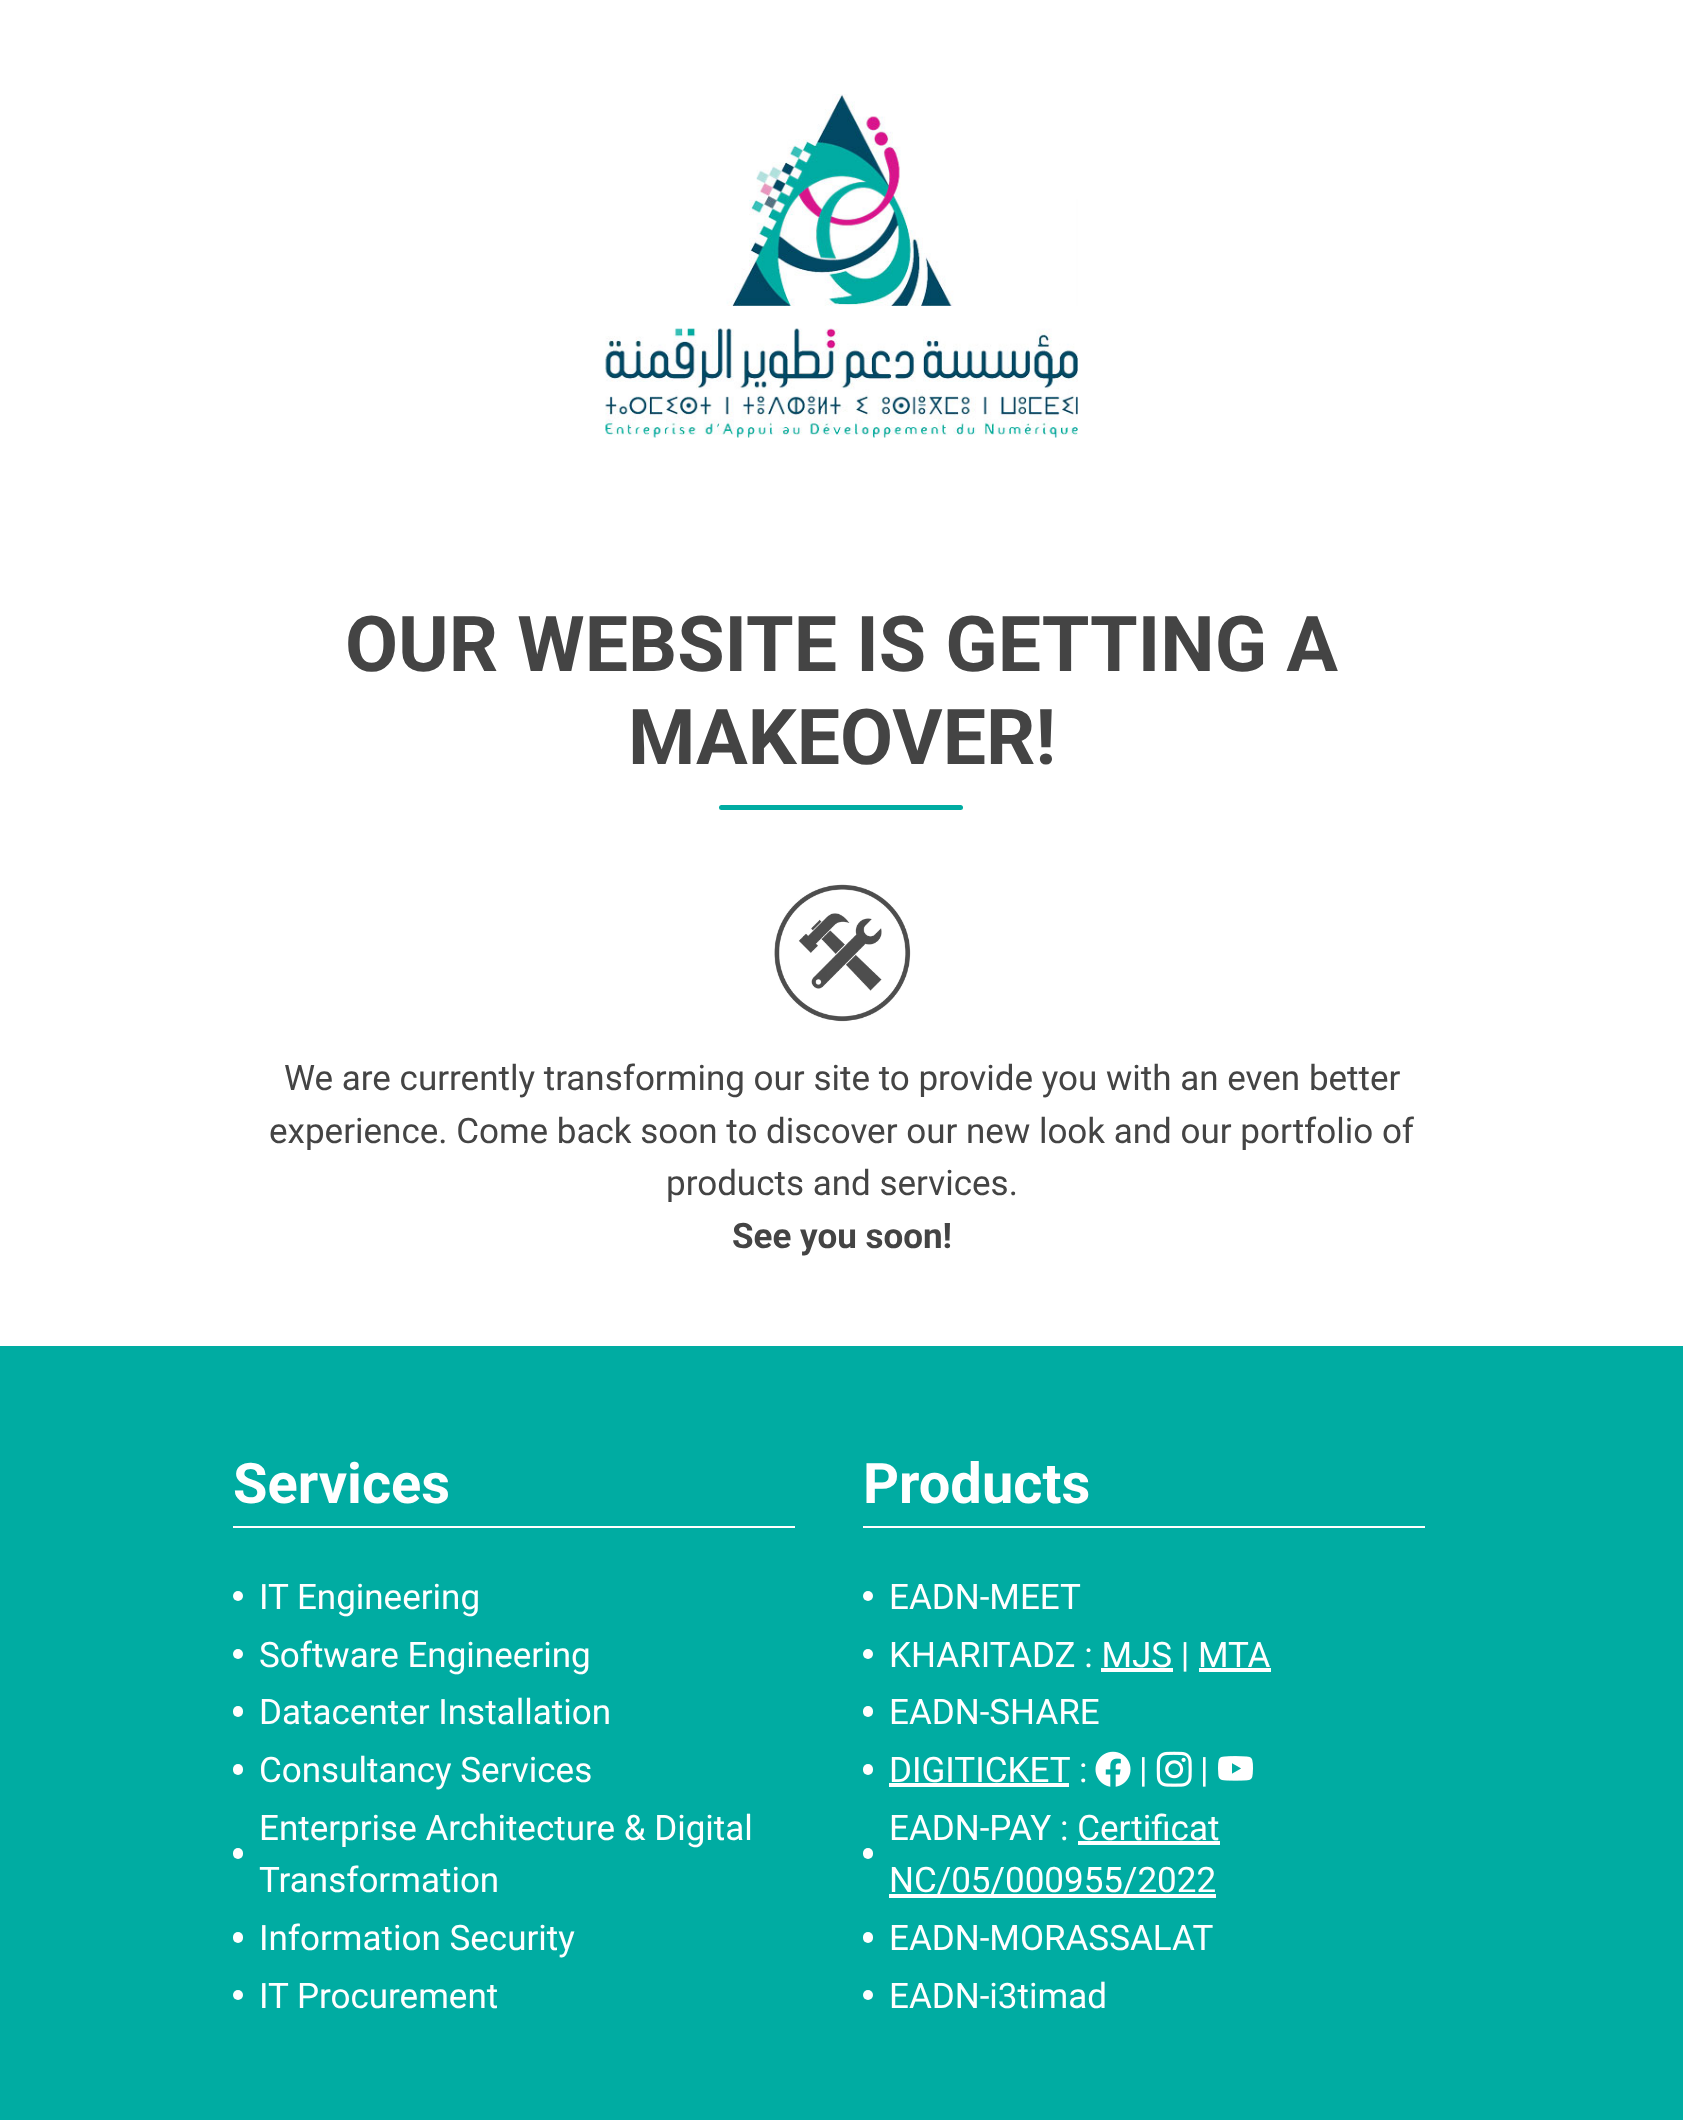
async function draw(canvas) {
	canvas.width = 1683;
	canvas.height = 2120;
	const c = canvas.getContext('2d');
	c.miterLimit = 4;
	c.fontKerning = 'normal';
	async function loadImage(src) {
		const img = new Image();
		img.src = src;
		await img.decode();
		return img;
	}

	c.fillStyle = '#fff';
	c.fillRect(0, 0, 1683, 2120);
	c.drawImage(await loadImage('img1.png'), 605, 94, 473, 344);
	c.font = 'bold 77px Roboto';
	c.fillStyle = '#444';
	c.fillText('OUR WEBSITE IS GETTING A', 345, 671);
	c.fillText('MAKEOVER!', 628, 764);
	c.fillStyle = '#00aca2';
	c.beginPath();
	c.roundRect(719, 805, 244, 5, 2.5);
	c.fill();
	c.drawImage(await loadImage('img2.png'), 774, 884, 137, 138);
	c.font = '35px Roboto';
	c.fillStyle = '#444';
	for (const [text, x, y] of [
		['We are currently transforming our site to provide you with an even better', 284, 1090],
		['experience. Come back soon to discover our new look and our portfolio of', 269, 1143],
		['products and services.', 666, 1195],
	]) {
		c.fillText(text, x, y);
	}
	c.font = 'bold 35px Roboto';
	c.fillText('See you soon!', 732, 1248);
	c.fillStyle = '#00aca2';
	c.fillRect(0, 1346, 1683, 774);
	c.fillStyle = '#fff';
	c.fillRect(233, 1526, 562, 2);
	c.font = 'bold 56px Roboto';
	c.fillText('Services', 233, 1503);
	c.beginPath();
	c.arc(238, 1596, 5, 0, 2 * Math.PI);
	c.fill();
	c.font = '35px Roboto';
	c.fillText('IT Engineering', 259, 1609);
	c.beginPath();
	c.arc(238, 1654, 5, 0, 2 * Math.PI);
	c.fill();
	c.fillText('Software Engineering', 259, 1667);
	c.beginPath();
	c.roundRect(233, 1706, 10, 11, 5);
	c.fill();
	c.fillText('Datacenter Installation', 259, 1724);
	c.beginPath();
	c.roundRect(233, 1764, 10, 11, 5);
	c.fill();
	c.fillText('Consultancy Services', 259, 1782);
	c.fillText('Enterprise Architecture & Digital', 259, 1840);
	c.beginPath();
	c.roundRect(233, 1848, 10, 11, 5);
	c.fill();
	c.fillText('Transformation', 259, 1892);
	c.beginPath();
	c.roundRect(233, 1932, 10, 11, 5);
	c.fill();
	c.fillText('Information Security', 259, 1950);
	c.beginPath();
	c.arc(238, 1995, 5, 0, 2 * Math.PI);
	c.fill();
	c.fillText('IT Procurement', 259, 2008);
	c.fillRect(863, 1526, 562, 2);
	c.font = 'bold 56px Roboto';
	c.fillText('Products', 863, 1503);
	c.beginPath();
	c.arc(868, 1596, 5, 0, 2 * Math.PI);
	c.fill();
	c.font = '35px Roboto';
	c.fillText('EADN-MEET', 889, 1609);
	c.beginPath();
	c.arc(868, 1654, 5, 0, 2 * Math.PI);
	c.fill();
	c.fillText('KHARITADZ : MJS | MTA', 889, 1667);
	c.fillRect(1101, 1668, 72, 4);
	c.fillRect(1199, 1668, 72, 4);
	c.beginPath();
	c.roundRect(863, 1706, 10, 11, 5);
	c.fill();
	c.fillText('EADN-SHARE', 889, 1724);
	c.beginPath();
	c.roundRect(863, 1764, 10, 11, 5);
	c.fill();
	c.fillText('DIGITICKET', 889, 1782);
	c.fillRect(889, 1783, 180, 4);
	c.fillText(':', 1079, 1782);
	c.drawImage(await loadImage('img3.png'), 1095, 1751, 36, 36);
	c.fillText('|', 1139, 1782);
	c.drawImage(await loadImage('img4.png'), 1156, 1751, 36, 36);
	c.fillText('|', 1200, 1782);
	c.drawImage(await loadImage('img5.png'), 1218, 1756, 35, 25);
	c.fillText('EADN-PAY : Certificat', 889, 1840);
	c.beginPath();
	c.roundRect(863, 1848, 10, 11, 5);
	c.fill();
	c.fillRect(889, 1894, 327, 4);
	c.fillText('NC/05/000955/2022', 889, 1892);
	c.fillRect(1078, 1841, 142, 4);
	c.beginPath();
	c.roundRect(863, 1932, 10, 11, 5);
	c.fill();
	c.fillText('EADN-MORASSALAT', 889, 1950);
	c.beginPath();
	c.arc(868, 1995, 5, 0, 2 * Math.PI);
	c.fill();
	c.fillText('EADN-i3timad', 889, 2008);
}

draw(document.querySelector('canvas'));
